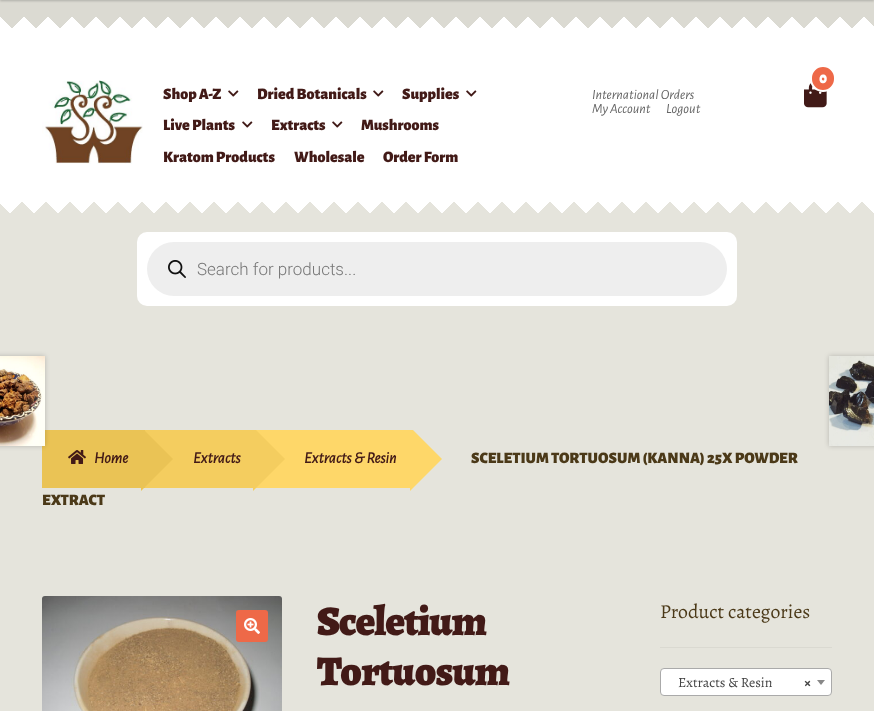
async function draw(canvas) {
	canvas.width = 874;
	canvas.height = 711;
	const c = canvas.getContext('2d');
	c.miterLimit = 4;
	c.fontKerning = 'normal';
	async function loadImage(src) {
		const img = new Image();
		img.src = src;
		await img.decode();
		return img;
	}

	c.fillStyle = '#e5e4dc';
	c.fillRect(0, 0, 874, 711);
	c.fillStyle = '#dbdad2';
	c.fillRect(0, 0, 874, 28);
	c.fillStyle = '#00000033';
	c.filter = 'blur(1px)';
	c.beginPath();
	c.rect(0, -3, 874, 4);
	c.fill();
	c.filter = 'none';
	c.fillStyle = '#fff';
	c.fillRect(0, 32, 874, 166);
	c.drawImage(await loadImage('img1.png'), 0, 17, 874, 15);
	c.drawImage(await loadImage('img2.png'), 12, 17, 852, 15);
	c.drawImage(await loadImage('img3.png'), 804, 83, 23, 25);
	c.fillStyle = '#ee6948';
	c.beginPath();
	c.roundRect(811, 66, 24, 25, 12);
	c.fill();
	c.strokeStyle = '#fff';
	c.lineWidth = 2;
	c.stroke();
	c.font = '900 16px Alegreya Sans';
	c.fillStyle = '#fff';
	c.fillText('0', 819, 83);
	c.drawImage(await loadImage('img4.png'), 42, 80, 101, 84);
	c.fillStyle = '#421a17';
	c.fillText('Shop A-Z', 163, 99);
	c.drawImage(await loadImage('img5.png'), 228, 90, 11, 7);
	c.fillText('Dried Botanicals', 257, 99);
	c.drawImage(await loadImage('img5.png'), 373, 90, 11, 7);
	c.fillText('Supplies', 402, 99);
	c.drawImage(await loadImage('img5.png'), 466, 90, 11, 7);
	c.fillText('Live Plants', 163, 130);
	c.drawImage(await loadImage('img5.png'), 242, 121, 11, 7);
	c.fillText('Extracts', 271, 130);
	c.drawImage(await loadImage('img5.png'), 332, 121, 11, 7);
	for (const [text, x, y] of [
		['Mushrooms', 361, 130],
		['Kratom Products', 163, 162],
		['Wholesale', 294, 162],
		['Order Form', 383, 162],
	]) {
		c.fillText(text, x, y);
	}
	c.font = 'italic 14px Alegreya Sans';
	c.fillStyle = '#666';
	for (const [text, x, y] of [
		['International Orders', 592, 99],
		['My Account', 592, 113],
		['Logout', 666, 113],
	]) {
		c.fillText(text, x, y);
	}
	c.drawImage(await loadImage('img6.png'), 0, 198, 874, 15);
	c.drawImage(await loadImage('img7.png'), 10, 198, 852, 15);
	c.fillStyle = '#fff';
	c.beginPath();
	c.roundRect(137, 232, 600, 74, 10);
	c.fill();
	c.fillStyle = '#eee';
	c.beginPath();
	c.roundRect(147, 242, 580, 54, 27);
	c.fill();
	c.drawImage(await loadImage('img8.png'), 168, 260, 18, 18);
	c.font = '300 17px Roboto';
	c.fillStyle = '#777';
	c.fillText('Search for products...', 197, 275);
	c.fillStyle = '#eac355';
	c.fillRect(42, 430, 103, 58);
	c.drawImage(await loadImage('img9.png'), 68, 450, 18, 14);
	c.font = 'italic bold 16px Alegreya Sans';
	c.fillStyle = '#421a17';
	c.fillText('Home', 94, 463);
	c.fillStyle = '#f4cd5f';
	c.fillRect(145, 430, 108, 58);
	c.save();
	c.beginPath();
	c.rect(42, 430, 790, 84);
	c.clip();
	c.fillStyle = '#eac355';
	c.beginPath();
	c.moveTo(141, 491);
	c.lineTo(141, 427);
	c.lineTo(173, 459);
	c.closePath();
	c.fill();
	c.restore();
	c.fillStyle = '#421a17';
	c.fillText('Extracts', 193, 463);
	c.fillStyle = '#fed769';
	c.fillRect(256, 430, 154, 58);
	c.save();
	c.beginPath();
	c.rect(42, 430, 790, 84);
	c.clip();
	c.fillStyle = '#f4cd5f';
	c.beginPath();
	c.moveTo(253, 491);
	c.lineTo(253, 427);
	c.lineTo(285, 459);
	c.closePath();
	c.fill();
	c.restore();
	c.fillStyle = '#421a17';
	c.fillText('Extracts & Resin', 304, 463);
	c.save();
	c.beginPath();
	c.rect(42, 430, 790, 84);
	c.clip();
	c.fillStyle = '#fed769';
	c.beginPath();
	c.moveTo(410, 491);
	c.lineTo(410, 427);
	c.lineTo(442, 459);
	c.closePath();
	c.fill();
	c.restore();
	c.font = '900 16px Alegreya Sans';
	c.fillStyle = '#4b3918';
	c.fillText('SCELETIUM TORTUOSUM (KANNA) 25X POWDER', 471, 463);
	c.fillText('EXTRACT', 42, 505);
	c.fillStyle = '#00000033';
	c.filter = 'blur(2.5px)';
	c.beginPath();
	c.rect(-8, 356, 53, 90);
	c.fill();
	c.filter = 'none';
	c.drawImage(await loadImage('img10.png'), 0, 356, 45, 90);
	c.filter = 'blur(2.5px)';
	c.beginPath();
	c.rect(829, 356, 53, 90);
	c.fill();
	c.filter = 'none';
	c.drawImage(await loadImage('img11.png'), 829, 356, 45, 90);
	c.drawImage(await loadImage('img12.png'), 42, 596, 240, 115);
	c.fillStyle = '#ee6948';
	c.beginPath();
	c.roundRect(236, 610, 32, 32, 3);
	c.fill();
	c.drawImage(await loadImage('img13.png'), 244, 618, 16, 16);
	c.letterSpacing = '-1px';
	c.font = '900 42px Alegreya';
	c.fillStyle = '#421a17';
	c.fillText('Sceletium', 317, 635);
	c.fillText('Tortuosum', 317, 685);
	c.fillStyle = '#dad9d1';
	c.fillRect(660, 647, 172, 1);
	c.letterSpacing = '0px';
	c.font = '19.75px Alegreya';
	c.fillStyle = '#4b3918';
	c.fillText('Product categories', 660, 618);
	c.fillStyle = '#fff';
	c.beginPath();
	c.roundRect(660.5, 668.5, 171, 27, 3.5);
	c.fill();
	c.strokeStyle = '#aaa';
	c.lineWidth = 1;
	c.stroke();
	c.font = '14px Alegreya';
	c.fillStyle = '#444';
	c.fillText('Extracts & Resin', 678, 687);
	c.font = 'bold 14px Alegreya';
	c.fillText('×', 804, 687);
	c.fillStyle = '#888';
	c.beginPath();
	c.moveTo(817, 680);
	c.lineTo(825, 680);
	c.lineTo(821, 685);
	c.closePath();
	c.fill();
}

draw(document.querySelector('canvas'));
